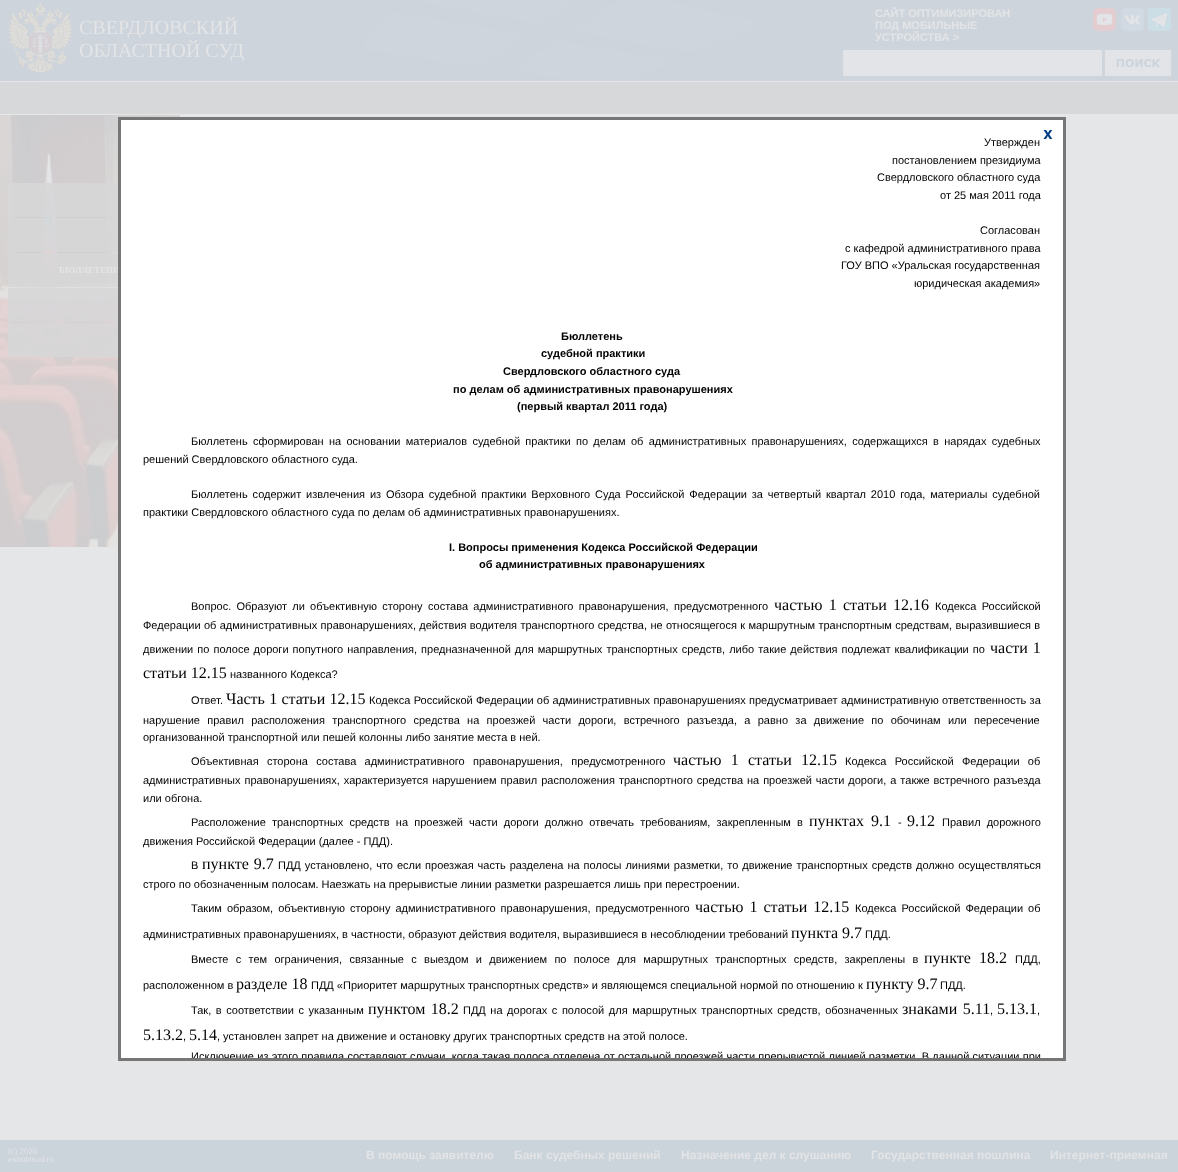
async function draw(canvas) {
	canvas.width = 1178;
	canvas.height = 1172;
	const c = canvas.getContext('2d');
	c.miterLimit = 4;
	c.fontKerning = 'normal';
	async function loadImage(src) {
		const img = new Image();
		img.src = src;
		await img.decode();
		return img;
	}

	c.fillStyle = '#e5e6e8';
	c.fillRect(0, 0, 1178, 1172);
	c.drawImage(await loadImage('img1.png'), 0, 0, 1178, 81);
	c.drawImage(await loadImage('img2.png'), 7, 2, 66, 72);
	c.font = '20px Liberation Serif';
	c.fillStyle = '#e3e4e6';
	c.fillText('СВЕРДЛОВСКИЙ', 79, 34);
	c.fillText('ОБЛАСТНОЙ СУД', 79, 57);
	c.font = 'bold 11px Liberation Sans';
	for (const [text, x, y] of [
		['САЙТ ОПТИМИЗИРОВАН', 875, 17],
		['ПОД МОБИЛЬНЫЕ', 875, 29],
		['УСТРОЙСТВА >', 875, 41],
	]) {
		c.fillText(text, x, y);
	}
	c.drawImage(await loadImage('img3.png'), 1093, 8, 23, 23);
	c.drawImage(await loadImage('img4.png'), 1121, 8, 23, 23);
	c.drawImage(await loadImage('img5.png'), 1148, 8, 23, 23);
	c.fillStyle = '#e5e6e8e6';
	c.fillRect(843, 50, 259, 26);
	c.drawImage(await loadImage('img6.png'), 1105, 50, 66, 26);
	c.fillStyle = '#d7d8da';
	c.fillRect(0, 82, 1178, 32);
	c.drawImage(await loadImage('img7.png'), 0, 115, 180, 432);
	for (const [x, y, w, h, color] of [
		[8, 183, 110, 34, '#d6d7d8e3'],
		[8, 218, 110, 34, '#d6d7d8e3'],
		[8, 253, 110, 34, '#d6d7d8e3'],
	]) {
		c.fillStyle = color;
		c.fillRect(x, y, w, h);
	}
	c.font = 'bold 9px Liberation Serif';
	c.fillStyle = '#e3e4e6';
	c.fillText('БЮЛЛЕТЕНИ', 59, 273);
	c.fillStyle = '#d6d7d8e3';
	c.fillRect(8, 288, 110, 34);
	c.fillRect(8, 323, 110, 34);
	c.fillStyle = '#fff';
	c.beginPath();
	c.rect(119.5, 118.5, 945, 941);
	c.fill();
	c.strokeStyle = '#767676';
	c.lineWidth = 3;
	c.stroke();
	c.drawImage(await loadImage('img8.png'), 1043, 130, 10, 9);
	c.font = '11px Liberation Sans';
	c.fillStyle = '#000';
	for (const [text, x, y] of [
		['Утвержден', 984, 146],
		['постановлением президиума', 892, 164],
		['Свердловского областного суда', 877, 181],
		['от 25 мая 2011 года', 940, 199],
		['Согласован', 980, 234],
		['с кафедрой административного права', 845, 252],
		['ГОУ ВПО «Уральская государственная', 841, 269],
		['юридическая академия»', 914, 287],
	]) {
		c.fillText(text, x, y);
	}
	c.font = 'bold 11px Liberation Sans';
	for (const [text, x, y] of [
		['Бюллетень', 561, 340],
		['судебной практики', 541, 357],
		['Свердловского областного суда', 503, 375],
		['по делам об административных правонарушениях', 453, 393],
		['(первый квартал 2011 года)', 517, 410],
	]) {
		c.fillText(text, x, y);
	}
	c.wordSpacing = '2.25px';
	c.font = '11px Liberation Sans';
	c.fillText('Бюллетень сформирован на основании материалов судебной практики по делам об административных правонарушениях, содержащихся в нарядах судебных', 191, 445);
	c.wordSpacing = '0px';
	c.fillText('решений Свердловского областного суда.', 143, 463);
	c.wordSpacing = '1.8px';
	c.fillText('Бюллетень содержит извлечения из Обзора судебной практики Верховного Суда Российской Федерации за четвертый квартал 2010 года, материалы судебной', 191, 498);
	c.wordSpacing = '0px';
	c.fillText('практики Свердловского областного суда по делам об административных правонарушениях.', 143, 516);
	c.font = 'bold 11px Liberation Sans';
	c.fillText('I. Вопросы применения Кодекса Российской Федерации', 449, 551);
	c.fillText('об административных правонарушениях', 479, 568);
	c.wordSpacing = '2.25px';
	c.font = '11px Liberation Sans';
	c.fillText('Вопрос. Образуют ли объективную сторону состава административного правонарушения, предусмотренного', 191, 610);
	c.font = '16px Liberation Serif';
	c.fillText('частью 1 статьи 12.16', 774, 610);
	c.font = '11px Liberation Sans';
	c.fillText('Кодекса Российской', 935, 610);
	c.wordSpacing = '0.3px';
	c.fillText('Федерации об административных правонарушениях, действия водителя транспортного средства, не относящегося к маршрутным транспортным средствам, выразившиеся в', 143, 629);
	c.wordSpacing = '1px';
	c.fillText('движении по полосе дороги попутного направления, предназначенной для маршрутных транспортных средств, либо такие действия подлежат квалификации по', 143, 653);
	c.font = '16px Liberation Serif';
	c.fillText('части 1', 990, 653);
	c.wordSpacing = '0px';
	c.fillText('статьи 12.15', 143, 678);
	c.font = '11px Liberation Sans';
	c.fillText('названного Кодекса?', 230, 678);
	c.fillText('Ответ.', 191, 704);
	c.wordSpacing = '0.25px';
	c.font = '16px Liberation Serif';
	c.fillText('Часть 1 статьи 12.15', 226, 704);
	c.font = '11px Liberation Sans';
	c.fillText('Кодекса Российской Федерации об административных правонарушениях предусматривает административную ответственность за', 369, 704);
	c.wordSpacing = '4.25px';
	c.fillText('нарушение правил расположения транспортного средства на проезжей части дороги, встречного разъезда, а равно за движение по обочинам или пересечение', 143, 724);
	c.wordSpacing = '0px';
	c.fillText('организованной транспортной или пешей колонны либо занятие места в ней.', 143, 741);
	c.wordSpacing = '5.25px';
	c.fillText('Объективная сторона состава административного правонарушения, предусмотренного', 191, 765);
	c.font = '16px Liberation Serif';
	c.fillText('частью 1 статьи 12.15', 673, 765);
	c.font = '11px Liberation Sans';
	c.fillText('Кодекса Российской Федерации об', 845, 765);
	c.wordSpacing = '0.9px';
	c.fillText('административных правонарушениях, характеризуется нарушением правил расположения транспортного средства на проезжей части дороги, а также встречного разъезда', 143, 784);
	c.wordSpacing = '0px';
	c.fillText('или обгона.', 143, 802);
	c.wordSpacing = '3.1px';
	c.fillText('Расположение транспортных средств на проезжей части дороги должно отвечать требованиям, закрепленным в', 191, 826);
	c.font = '16px Liberation Serif';
	c.fillText('пунктах 9.1', 809, 826);
	c.wordSpacing = '0px';
	c.font = '11px Liberation Sans';
	c.fillText('-', 898, 826);
	c.font = '16px Liberation Serif';
	c.fillText('9.12', 907, 826);
	c.wordSpacing = '3.1px';
	c.font = '11px Liberation Sans';
	c.fillText('Правил дорожного', 942, 826);
	c.wordSpacing = '0px';
	c.fillText('движения Российской Федерации (далее - ПДД).', 143, 845);
	c.fillText('В', 191, 869);
	c.wordSpacing = '1px';
	c.font = '16px Liberation Serif';
	c.fillText('пункте 9.7', 202, 869);
	c.wordSpacing = '0.9px';
	c.font = '11px Liberation Sans';
	c.fillText('ПДД установлено, что если проезжая часть разделена на полосы линиями разметки, то движение транспортных средств должно осуществляться', 278, 869);
	c.wordSpacing = '0px';
	c.fillText('строго по обозначенным полосам. Наезжать на прерывистые линии разметки разрешается лишь при перестроении.', 143, 888);
	c.wordSpacing = '2px';
	c.fillText('Таким образом, объективную сторону административного правонарушения, предусмотренного', 191, 912);
	c.font = '16px Liberation Serif';
	c.fillText('частью 1 статьи 12.15', 695, 912);
	c.font = '11px Liberation Sans';
	c.fillText('Кодекса Российской Федерации об', 855, 912);
	c.wordSpacing = '0px';
	c.fillText('административных правонарушениях, в частности, образуют действия водителя, выразившиеся в несоблюдении требований', 143, 938);
	c.font = '16px Liberation Serif';
	c.fillText('пункта 9.7', 791, 938);
	c.font = '11px Liberation Sans';
	c.fillText('ПДД.', 865, 938);
	c.wordSpacing = '4.25px';
	c.fillText('Вместе с тем ограничения, связанные с выездом и движением по полосе для маршрутных транспортных средств, закреплены в', 191, 963);
	c.font = '16px Liberation Serif';
	c.fillText('пункте 18.2', 924, 963);
	c.wordSpacing = '0px';
	c.font = '11px Liberation Sans';
	c.fillText('ПДД,', 1015, 963);
	c.fillText('расположенном в', 143, 989);
	c.font = '16px Liberation Serif';
	c.fillText('разделе 18', 236, 989);
	c.font = '11px Liberation Sans';
	c.fillText('ПДД «Приоритет маршрутных транспортных средств» и являющемся специальной нормой по отношению к', 311, 989);
	c.font = '16px Liberation Serif';
	c.fillText('пункту 9.7', 866, 989);
	c.font = '11px Liberation Sans';
	c.fillText('ПДД.', 940, 989);
	c.wordSpacing = '1.5px';
	c.fillText('Так, в соответствии с указанным', 191, 1014);
	c.font = '16px Liberation Serif';
	c.fillText('пунктом 18.2', 368, 1014);
	c.font = '11px Liberation Sans';
	c.fillText('ПДД на дорогах с полосой для маршрутных транспортных средств, обозначенных', 463, 1014);
	c.font = '16px Liberation Serif';
	c.fillText('знаками 5.11', 902, 1014);
	c.wordSpacing = '0px';
	c.font = '11px Liberation Sans';
	c.fillText(',', 990, 1014);
	c.font = '16px Liberation Serif';
	c.fillText('5.13.1', 997, 1014);
	c.font = '11px Liberation Sans';
	c.fillText(',', 1037, 1014);
	c.font = '16px Liberation Serif';
	c.fillText('5.13.2', 143, 1040);
	c.font = '11px Liberation Sans';
	c.fillText(',', 183, 1040);
	c.font = '16px Liberation Serif';
	c.fillText('5.14', 189, 1040);
	c.font = '11px Liberation Sans';
	c.fillText(', установлен запрет на движение и остановку других транспортных средств на этой полосе.', 217, 1040);
	c.save();
	c.beginPath();
	c.rect(121, 120, 942, 938);
	c.clip();
	c.wordSpacing = '0.25px';
	c.fillText('Исключение из этого правила составляют случаи, когда такая полоса отделена от остальной проезжей части прерывистой линией разметки. В данной ситуации при', 191, 1060);
	c.restore();
	c.fillStyle = '#cbd3db';
	c.fillRect(0, 1140, 1178, 32);
	c.font = '8px Liberation Sans';
	c.fillStyle = '#e3e4e6';
	c.fillText('(с) 2026', 8, 1154);
	c.fillText('ekboblsud.ru', 8, 1162);
	c.font = 'bold 12px Liberation Sans';
	for (const [text, x, y] of [
		['В помощь заявителю', 366, 1159],
		['Банк судебных решений', 514, 1159],
		['Назначение дел к слушанию', 681, 1159],
		['Государственная пошлина', 871, 1159],
		['Интернет-приемная', 1050, 1159],
	]) {
		c.fillText(text, x, y);
	}
}

draw(document.querySelector('canvas'));
